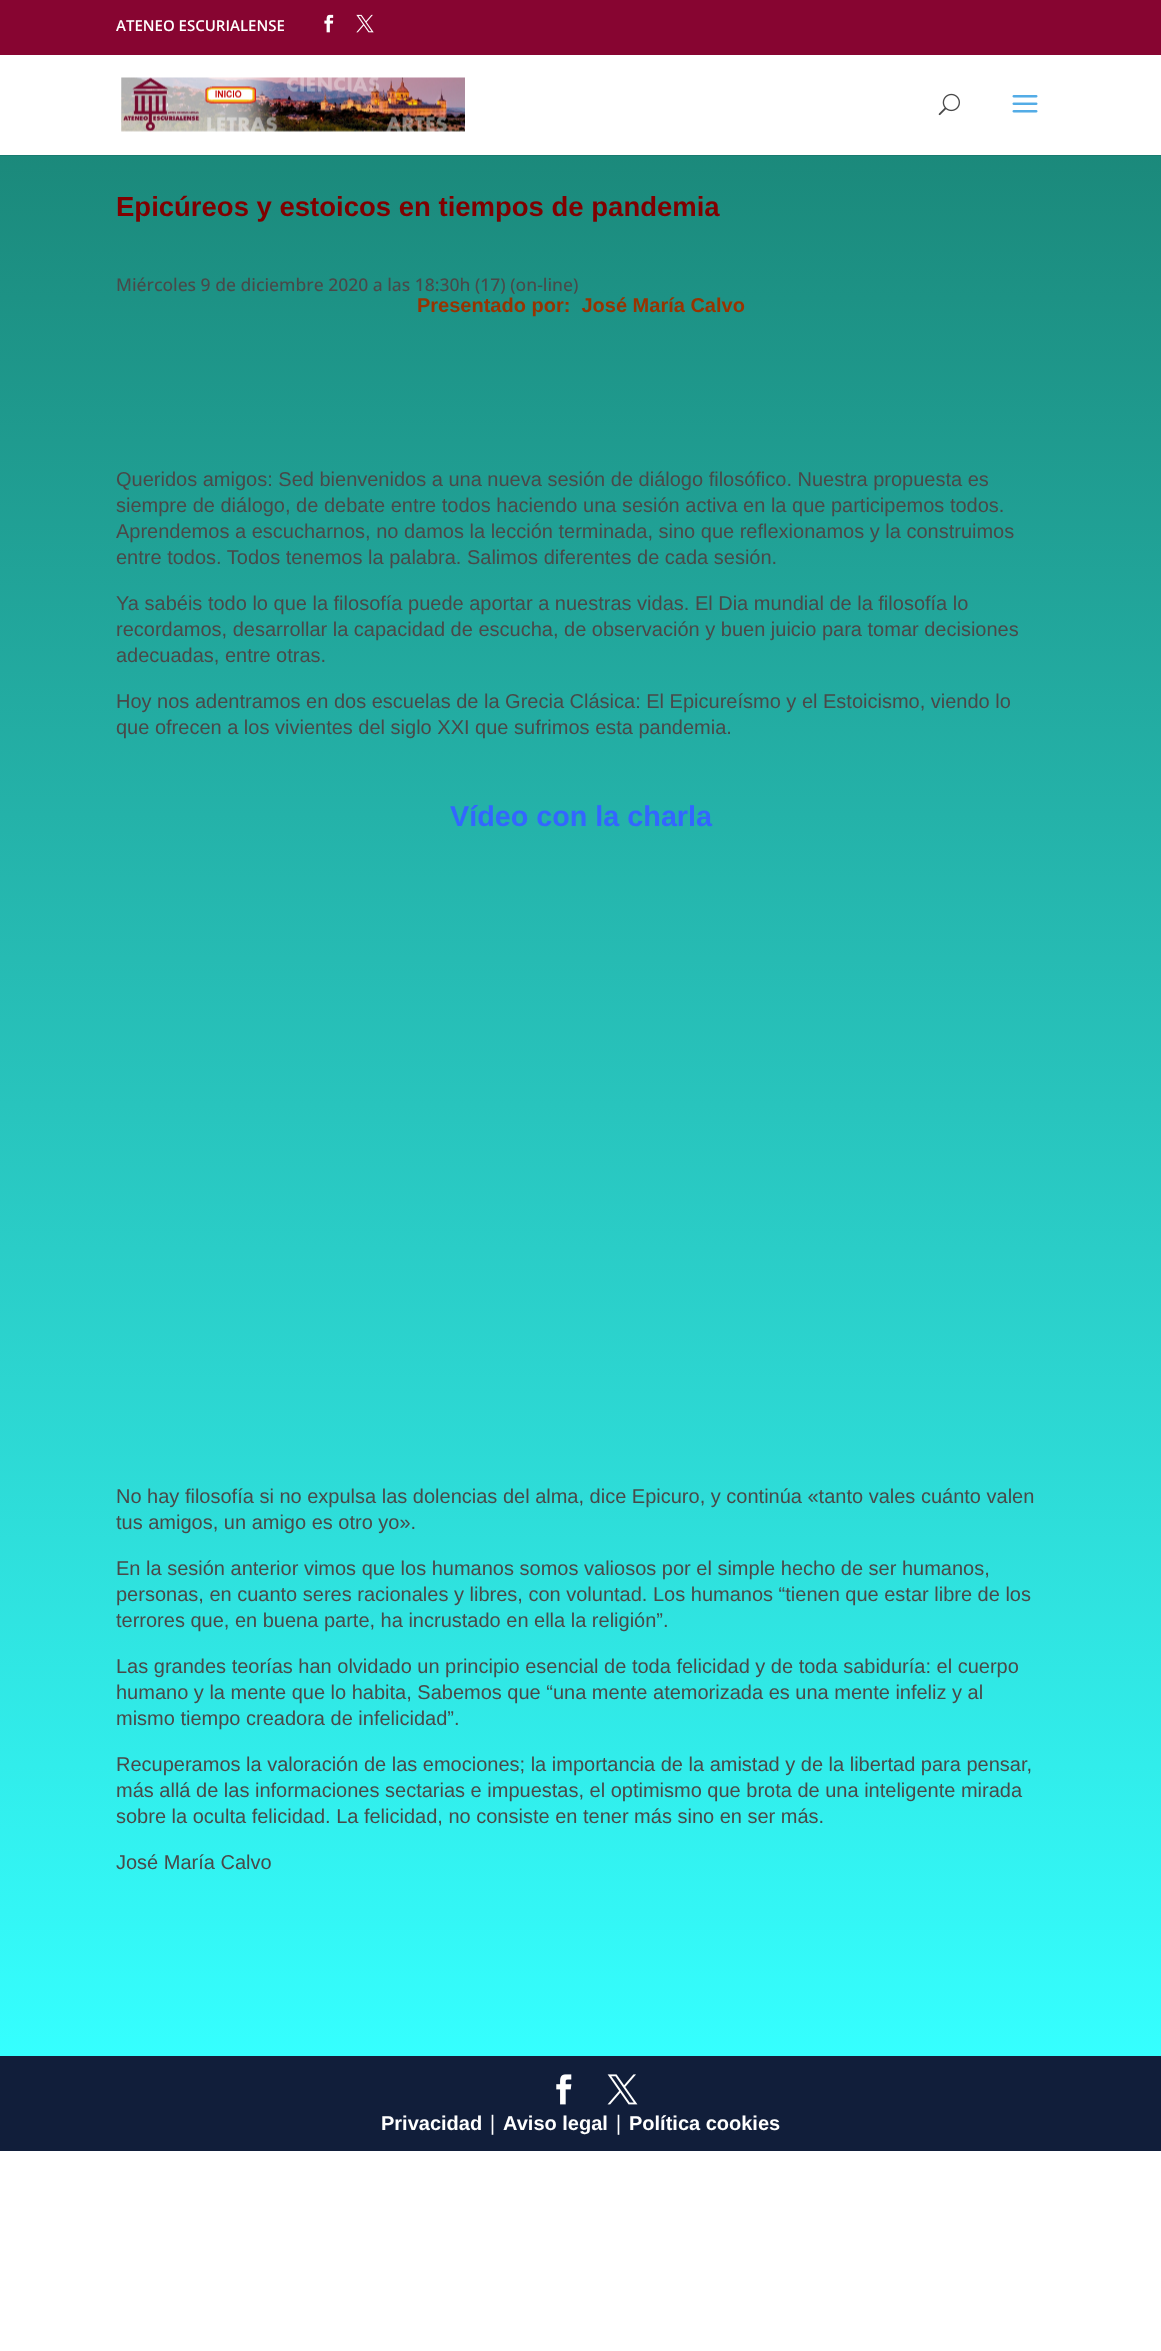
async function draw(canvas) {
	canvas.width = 1161;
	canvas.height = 2351;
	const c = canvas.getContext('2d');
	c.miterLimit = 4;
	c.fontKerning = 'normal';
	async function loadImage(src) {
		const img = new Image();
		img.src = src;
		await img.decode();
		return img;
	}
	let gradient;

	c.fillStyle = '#fff';
	c.fillRect(0, 0, 1161, 2351);
	c.fillStyle = '#870531';
	c.fillRect(0, 0, 1161, 55);
	c.font = '600 15px Open Sans';
	c.fillStyle = '#fff';
	c.fillText('ATENEO ESCURIALENSE', 116, 31);
	c.drawImage(await loadImage('img1.png'), 324, 14, 10, 19);
	c.drawImage(await loadImage('img2.png'), 356, 14, 18, 19);
	c.fillStyle = '#187b6f';
	c.fillRect(0, 155, 1161, 1);
	c.drawImage(await loadImage('img3.png'), 121, 77, 344, 55);
	c.drawImage(await loadImage('img4.png'), 938, 93, 22, 23);
	c.drawImage(await loadImage('img5.png'), 1012, 95, 26, 18);
	gradient = c.createLinearGradient(581, 152, 581, 2056);
	gradient.addColorStop(0, '#1b897b');
	gradient.addColorStop(1, '#35ffff');
	c.fillStyle = gradient;
	c.fillRect(0, 156, 1161, 1900);
	c.font = 'bold 27.5px Liberation Sans';
	c.fillStyle = '#800000';
	c.fillText('Epicúreos y estoicos en tiempos de pandemia', 116, 216);
	c.font = '500 17.5px Open Sans';
	c.fillStyle = '#494949';
	c.fillText('Miércoles 9 de diciembre 2020 a las 18:30h (17) (on-line)', 116, 291);
	c.font = 'bold 20px Liberation Sans';
	c.fillStyle = '#930';
	c.fillText('Presentado por:  José María Calvo', 417, 312);
	c.font = '20px Liberation Sans';
	c.fillStyle = '#494949';
	for (const [text, x, y] of [
		['Queridos amigos: Sed bienvenidos a una nueva sesión de diálogo filosófico. Nuestra propuesta es', 116, 486],
		['siempre de diálogo, de debate entre todos haciendo una sesión activa en la que participemos todos.', 116, 512],
		['Aprendemos a escucharnos, no damos la lección terminada, sino que reflexionamos y la construimos', 116, 538],
		['entre todos. Todos tenemos la palabra. Salimos diferentes de cada sesión.', 116, 564],
		['Ya sabéis todo lo que la filosofía puede aportar a nuestras vidas. El Dia mundial de la filosofía lo', 116, 610],
		['recordamos, desarrollar la capacidad de escucha, de observación y buen juicio para tomar decisiones', 116, 636],
		['adecuadas, entre otras.', 116, 662],
		['Hoy nos adentramos en dos escuelas de la Grecia Clásica: El Epicureísmo y el Estoicismo, viendo lo', 116, 708],
		['que ofrecen a los vivientes del siglo XXI que sufrimos esta pandemia.', 116, 734],
	]) {
		c.fillText(text, x, y);
	}
	c.font = 'bold 28.75px Liberation Sans';
	c.fillStyle = '#36f';
	c.fillText('Vídeo con la charla', 450, 826);
	c.font = '20px Liberation Sans';
	c.fillStyle = '#494949';
	for (const [text, x, y] of [
		['No hay filosofía si no expulsa las dolencias del alma, dice Epicuro, y continúa «tanto vales cuánto valen', 116, 1503],
		['tus amigos, un amigo es otro yo».', 116, 1529],
		['En la sesión anterior vimos que los humanos somos valiosos por el simple hecho de ser humanos,', 116, 1575],
		['personas, en cuanto seres racionales y libres, con voluntad. Los humanos “tienen que estar libre de los', 116, 1601],
		['terrores que, en buena parte, ha incrustado en ella la religión”.', 116, 1627],
		['Las grandes teorías han olvidado un principio esencial de toda felicidad y de toda sabiduría: el cuerpo', 116, 1673],
		['humano y la mente que lo habita, Sabemos que “una mente atemorizada es una mente infeliz y al', 116, 1699],
		['mismo tiempo creadora de infelicidad”.', 116, 1725],
		['Recuperamos la valoración de las emociones; la importancia de la amistad y de la libertad para pensar,', 116, 1771],
		['más allá de las informaciones sectarias e impuestas, el optimismo que brota de una inteligente mirada', 116, 1797],
		['sobre la oculta felicidad. La felicidad, no consiste en tener más sino en ser más.', 116, 1823],
		['José María Calvo', 116, 1869],
	]) {
		c.fillText(text, x, y);
	}
	c.fillStyle = '#111e3a';
	c.fillRect(0, 2056, 1161, 95);
	c.drawImage(await loadImage('img6.png'), 556, 2074, 16, 31);
	c.drawImage(await loadImage('img7.png'), 607, 2074, 31, 31);
	c.font = 'bold 20px Liberation Sans';
	c.fillStyle = '#fff';
	c.fillText('Privacidad', 381, 2130);
	c.font = '500 20px Open Sans';
	c.fillText('|', 487, 2130);
	c.font = 'bold 20px Liberation Sans';
	c.fillText('Aviso legal', 503, 2130);
	c.font = '500 20px Open Sans';
	c.fillText('|', 613, 2130);
	c.font = 'bold 20px Liberation Sans';
	c.fillText('Política cookies', 629, 2130);
}

draw(document.querySelector('canvas'));
